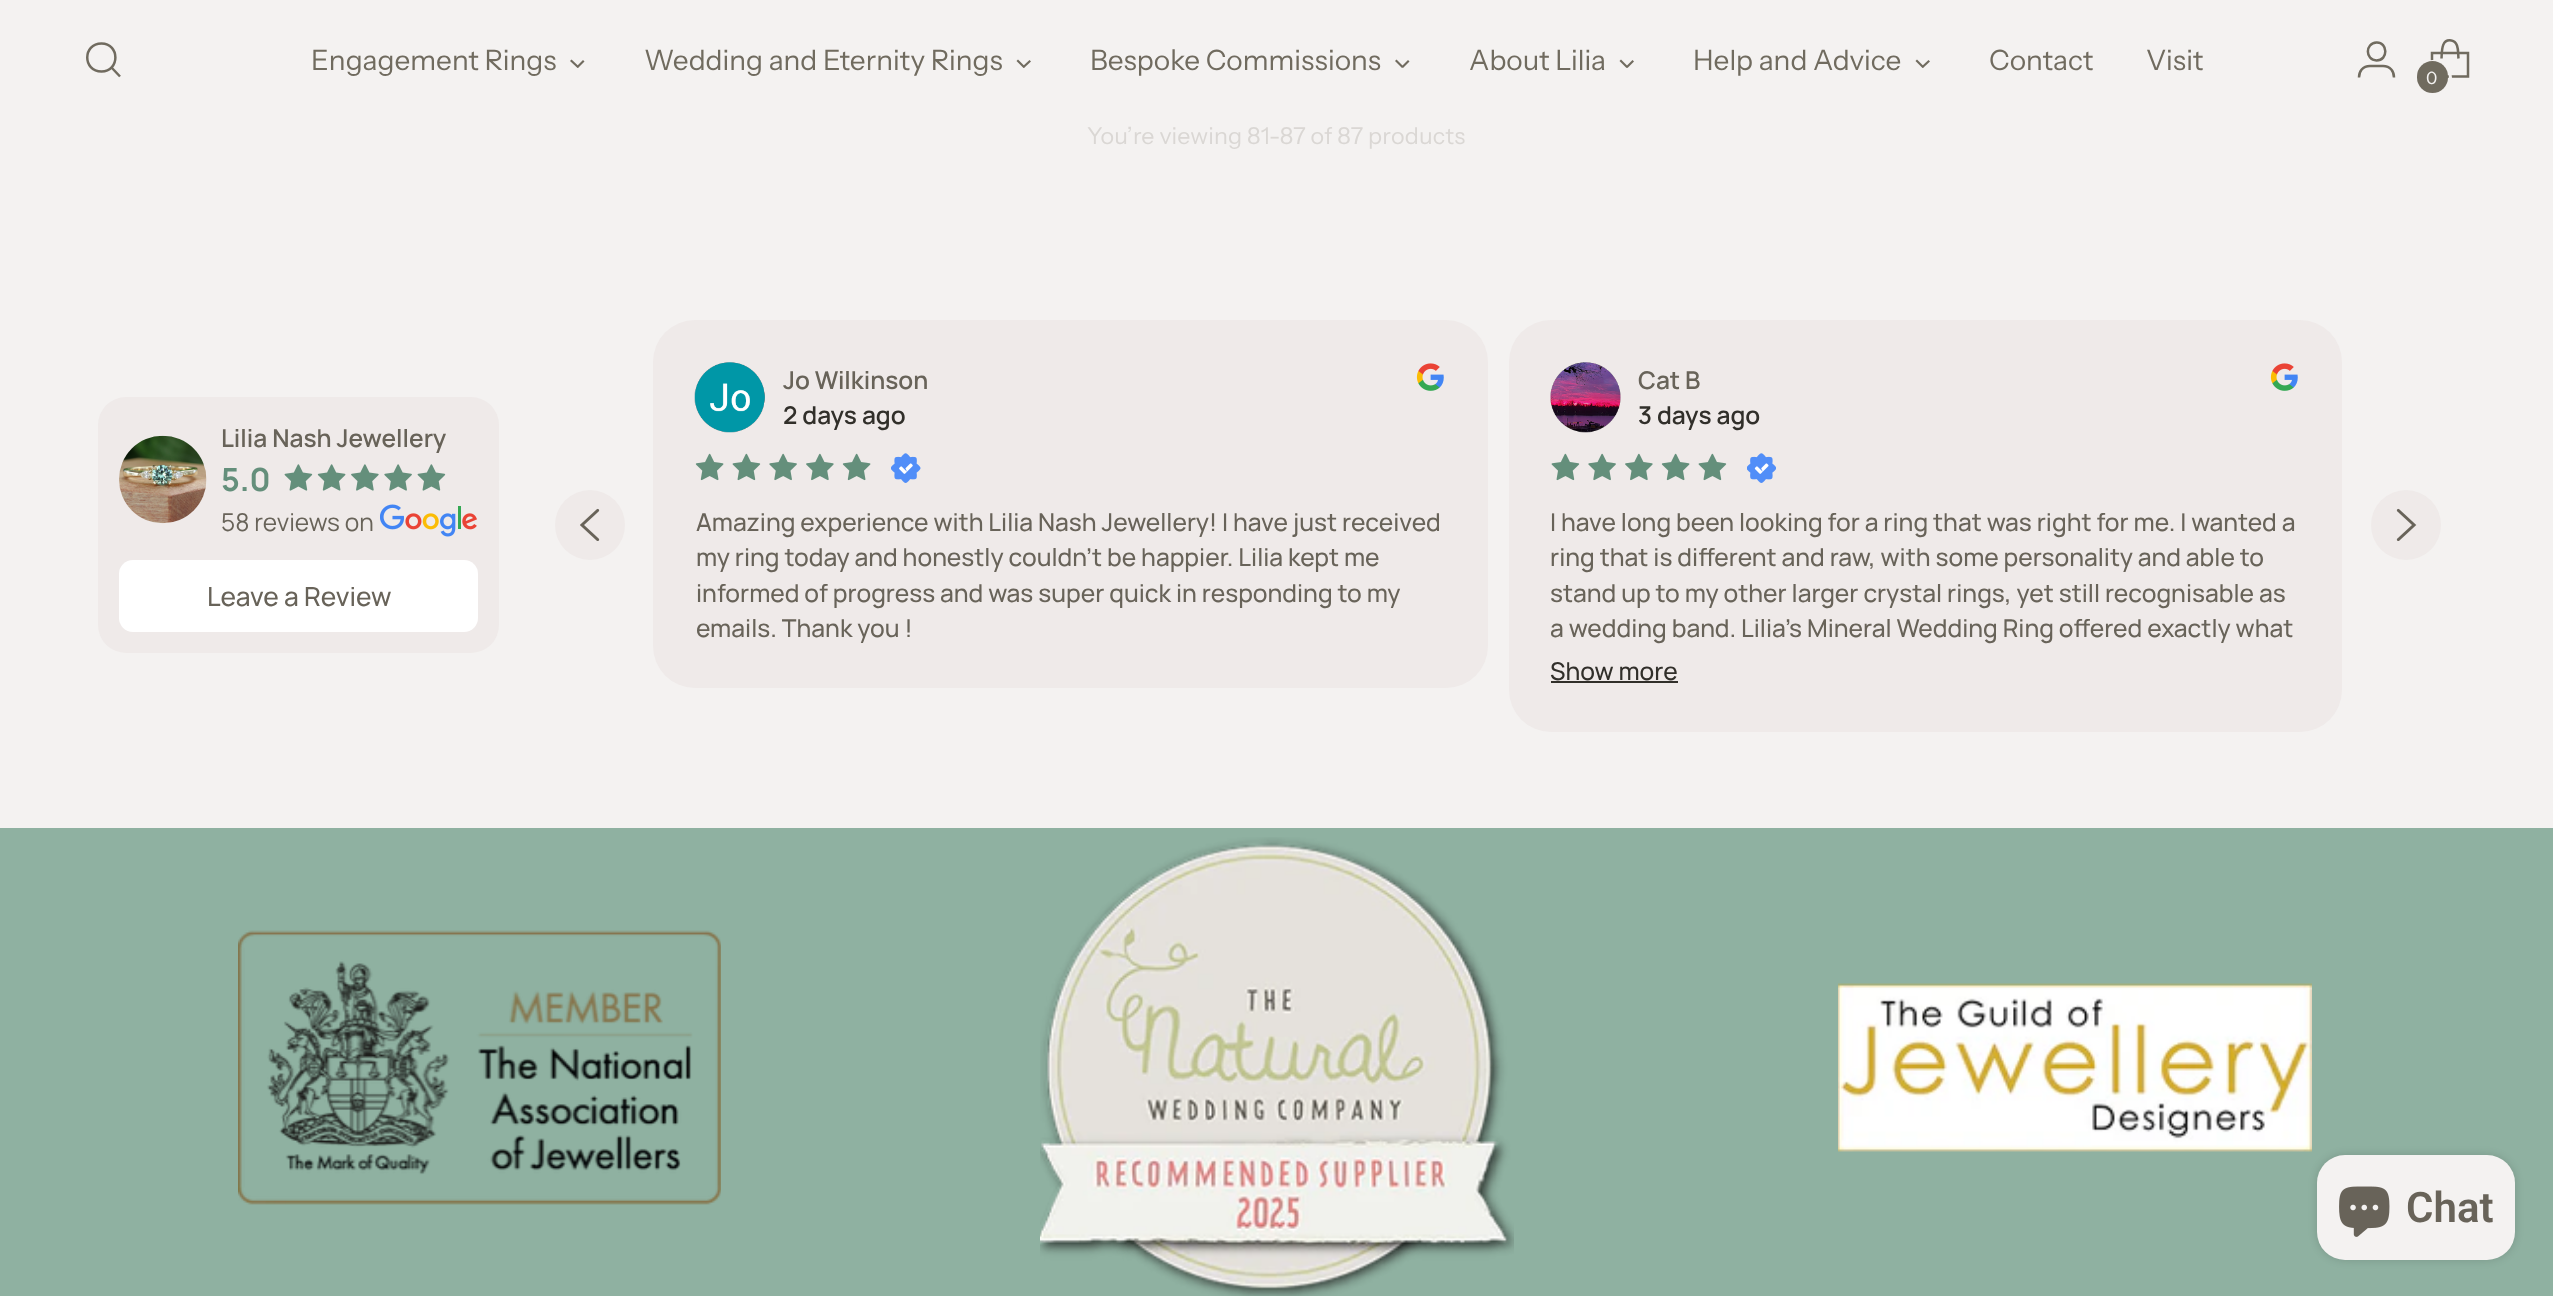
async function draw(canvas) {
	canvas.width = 2553;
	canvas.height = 1296;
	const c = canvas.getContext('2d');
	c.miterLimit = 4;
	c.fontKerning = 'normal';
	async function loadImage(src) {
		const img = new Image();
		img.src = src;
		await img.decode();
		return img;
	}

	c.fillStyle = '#f4f2f1';
	c.fillRect(0, 0, 2553, 1296);
	c.beginPath();
	c.moveTo(101.5, 71.5);
	c.bezierCurveTo(120, 71.5, 120, 43.5, 101.5, 43.5);
	c.bezierCurveTo(82.5, 43.5, 82.5, 71.5, 101.5, 71.5);
	c.closePath();
	c.strokeStyle = '#706b5f';
	c.lineWidth = 2.5;
	c.lineCap = 'round';
	c.stroke();
	c.beginPath();
	c.moveTo(111.5, 67.5);
	c.lineTo(120, 76.5);
	c.lineCap = 'butt';
	c.stroke();
	c.font = '28px Instrument Sans';
	c.fillStyle = '#706b5f';
	c.fillText('Engagement Rings', 311, 70);
	c.beginPath();
	c.moveTo(583, 60);
	c.lineTo(584.5, 61.5);
	c.lineTo(578, 68);
	c.lineTo(576.5, 66.5);
	c.closePath();
	c.fill();
	c.beginPath();
	c.moveTo(571.5, 59.5);
	c.lineTo(579, 66.5);
	c.lineTo(577.5, 68);
	c.lineTo(570, 61);
	c.closePath();
	c.fill();
	c.fillText('Wedding and Eternity Rings', 644, 70);
	c.beginPath();
	c.moveTo(1029.5, 60);
	c.lineTo(1031, 61.5);
	c.lineTo(1024, 68);
	c.lineTo(1022.5, 66.5);
	c.closePath();
	c.fill();
	c.beginPath();
	c.moveTo(1018, 59.5);
	c.lineTo(1025, 66.5);
	c.lineTo(1023.5, 68);
	c.lineTo(1016.5, 61);
	c.closePath();
	c.fill();
	c.fillText('Bespoke Commissions', 1090, 70);
	c.beginPath();
	c.moveTo(1408, 60);
	c.lineTo(1409.5, 61.5);
	c.lineTo(1403, 68);
	c.lineTo(1401.5, 66.5);
	c.closePath();
	c.fill();
	c.beginPath();
	c.moveTo(1396.5, 59.5);
	c.lineTo(1403.5, 66.5);
	c.lineTo(1402, 68);
	c.lineTo(1395, 61);
	c.closePath();
	c.fill();
	c.fillText('About Lilia', 1469, 70);
	c.beginPath();
	c.moveTo(1632.5, 60);
	c.lineTo(1634, 61.5);
	c.lineTo(1627.5, 68);
	c.lineTo(1626, 66.5);
	c.closePath();
	c.fill();
	c.beginPath();
	c.moveTo(1621, 59.5);
	c.lineTo(1628, 66.5);
	c.lineTo(1626.5, 68);
	c.lineTo(1619.5, 61);
	c.closePath();
	c.fill();
	c.fillText('Help and Advice', 1693, 70);
	c.beginPath();
	c.moveTo(1928.5, 60);
	c.lineTo(1930, 61.5);
	c.lineTo(1923, 68);
	c.lineTo(1921.5, 66.5);
	c.closePath();
	c.fill();
	c.beginPath();
	c.moveTo(1917, 59.5);
	c.lineTo(1924, 66.5);
	c.lineTo(1922.5, 68);
	c.lineTo(1915.5, 61);
	c.closePath();
	c.fill();
	c.fillText('Contact', 1989, 70);
	c.fillText('Visit', 2146, 70);
	c.beginPath();
	c.moveTo(2376.5, 60.5);
	c.bezierCurveTo(2388.5, 60.5, 2388, 42, 2376.5, 42.5);
	c.bezierCurveTo(2365, 43, 2365, 60, 2376.5, 60.5);
	c.closePath();
	c.moveTo(2359, 77.5);
	c.bezierCurveTo(2359, 71.5, 2362.5, 66, 2370, 66);
	c.lineTo(2383, 66);
	c.bezierCurveTo(2390.5, 66, 2394, 71.5, 2394, 77.5);
	c.stroke();
	c.beginPath();
	c.moveTo(2458.5, 58.5);
	c.bezierCurveTo(2458, 54, 2458.5, 49.5, 2457, 45.5);
	c.bezierCurveTo(2456, 43, 2454.5, 41, 2451.5, 40.5);
	c.bezierCurveTo(2441, 38.5, 2442, 52, 2441.5, 58.5);
	c.lineJoin = 'bevel';
	c.stroke();
	c.beginPath();
	c.moveTo(2468, 76.5);
	c.lineTo(2468, 53);
	c.lineTo(2432, 53);
	c.lineTo(2432, 76.5);
	c.closePath();
	c.lineJoin = 'miter';
	c.stroke();
	c.beginPath();
	c.roundRect(2416.5, 61.5, 34, 33, 16.5);
	c.strokeStyle = '#f4f2f1';
	c.lineWidth = 3;
	c.stroke();
	c.beginPath();
	c.roundRect(2417, 61, 31, 32, 15.5);
	c.fill();
	c.letterSpacing = '0.15px';
	c.font = '17px Instrument Sans';
	c.fillStyle = '#f4f2f1';
	c.fillText('0', 2426, 84);
	c.font = '23.25px Instrument Sans';
	c.fillStyle = '#dad7d4';
	c.fillText('You’re viewing 81-87 of 87 products', 1087, 144);
	c.fillStyle = '#efeae9';
	c.beginPath();
	c.roundRect(98, 397, 401, 256, 28);
	c.fill();
	c.drawImage(await loadImage('img1.png'), 119, 435, 88, 89);
	c.letterSpacing = '0px';
	c.font = '600 24.5px Manrope';
	c.fillStyle = '#686359';
	c.fillText('Lilia Nash Jewellery', 221, 447);
	c.font = 'bold 32px Manrope';
	c.fillStyle = '#648f7b';
	c.fillText('5.0', 221, 491);
	c.drawImage(await loadImage('img2.png'), 284, 464, 29, 27);
	c.drawImage(await loadImage('img3.png'), 317, 464, 29, 27);
	c.drawImage(await loadImage('img4.png'), 351, 464, 28, 27);
	c.drawImage(await loadImage('img5.png'), 384, 464, 28, 27);
	c.drawImage(await loadImage('img2.png'), 417, 464, 29, 27);
	c.font = '24.5px Manrope';
	c.fillStyle = '#686359';
	c.fillText('58 reviews on', 221, 531);
	c.drawImage(await loadImage('img6.png'), 380, 504, 97, 33);
	c.fillStyle = '#fff';
	c.beginPath();
	c.roundRect(119, 560, 359, 72, 14);
	c.fill();
	c.font = '500 26.25px Manrope';
	c.fillStyle = '#686359';
	c.fillText('Leave a Review', 207, 606);
	c.fillStyle = '#efeae9';
	c.beginPath();
	c.arc(590, 525, 35, 0, 2 * Math.PI);
	c.fill();
	c.drawImage(await loadImage('img7.png'), 580, 508, 20, 33);
	c.beginPath();
	c.roundRect(653, 320, 835, 368, 42);
	c.fill();
	c.drawImage(await loadImage('img8.png'), 694, 362, 71, 71);
	c.font = '600 24.5px Manrope';
	c.fillStyle = '#686359';
	c.fillText('Jo Wilkinson', 783, 389);
	c.fillStyle = '#312f2a';
	c.fillText('2 days ago', 783, 424);
	c.drawImage(await loadImage('img9.png'), 1416, 363, 28, 28);
	c.drawImage(await loadImage('img10.png'), 695, 453, 29, 28);
	c.drawImage(await loadImage('img11.png'), 732, 453, 29, 28);
	c.drawImage(await loadImage('img12.png'), 769, 453, 28, 28);
	c.drawImage(await loadImage('img13.png'), 806, 453, 28, 28);
	c.drawImage(await loadImage('img10.png'), 842, 453, 29, 28);
	c.drawImage(await loadImage('img14.png'), 891, 453, 30, 30);
	c.font = '500 24.5px Manrope';
	c.fillStyle = '#686359';
	for (const [text, x, y] of [
		['Amazing experience with Lilia Nash Jewellery! I have just received', 696, 531],
		['my ring today and honestly couldn’t be happier. Lilia kept me', 696, 566],
		['informed of progress and was super quick in responding to my', 696, 602],
		['emails. Thank you !', 696, 637],
	]) {
		c.fillText(text, x, y);
	}
	c.fillStyle = '#efeae9';
	c.beginPath();
	c.roundRect(1509, 320, 833, 412, 42);
	c.fill();
	c.drawImage(await loadImage('img15.png'), 1550, 362, 71, 71);
	c.font = '600 24.5px Manrope';
	c.fillStyle = '#686359';
	c.fillText('Cat B', 1638, 389);
	c.fillStyle = '#312f2a';
	c.fillText('3 days ago', 1638, 424);
	c.drawImage(await loadImage('img9.png'), 2270, 363, 28, 28);
	c.drawImage(await loadImage('img11.png'), 1551, 453, 29, 28);
	c.drawImage(await loadImage('img12.png'), 1588, 453, 28, 28);
	c.drawImage(await loadImage('img13.png'), 1625, 453, 28, 28);
	c.drawImage(await loadImage('img10.png'), 1661, 453, 29, 28);
	c.drawImage(await loadImage('img11.png'), 1698, 453, 29, 28);
	c.drawImage(await loadImage('img16.png'), 1747, 453, 29, 30);
	c.font = '500 24.5px Manrope';
	c.fillStyle = '#686359';
	for (const [text, x, y] of [
		['I have long been looking for a ring that was right for me. I wanted a', 1550, 531],
		['ring that is different and raw, with some personality and able to', 1550, 566],
		['stand up to my other larger crystal rings, yet still recognisable as', 1550, 602],
		['a wedding band. Lilia\'s Mineral Wedding Ring offered exactly what', 1550, 637],
	]) {
		c.fillText(text, x, y);
	}
	c.fillStyle = '#312f2a';
	c.fillText('Show more', 1550, 680);
	c.fillRect(1551, 681, 127, 2);
	c.fillStyle = '#efeae9';
	c.beginPath();
	c.arc(2406, 525, 35, 0, 2 * Math.PI);
	c.fill();
	c.drawImage(await loadImage('img17.png'), 2396, 508, 21, 33);
	c.fillStyle = '#8fb1a1';
	c.fillRect(0, 828, 2553, 468);
	c.drawImage(await loadImage('img18.png'), 238, 930, 483, 275);
	c.drawImage(await loadImage('img19.png'), 1040, 837, 474, 459);
	c.drawImage(await loadImage('img20.png'), 1838, 983, 474, 169);
	c.fillStyle = '#00000026';
	c.filter = 'blur(4.5px)';
	c.beginPath();
	c.roundRect(2317, 1155, 198, 105, 28);
	c.fill();
	c.filter = 'none';
	c.fillStyle = '#f4f2f1';
	c.beginPath();
	c.roundRect(2317, 1155, 198, 105, 28);
	c.fill();
	c.drawImage(await loadImage('img21.png'), 2339, 1186, 51, 51);
	c.font = '600 42px Roboto';
	c.fillStyle = '#686359';
	c.fillText('Chat', 2406, 1222);
}

draw(document.querySelector('canvas'));
